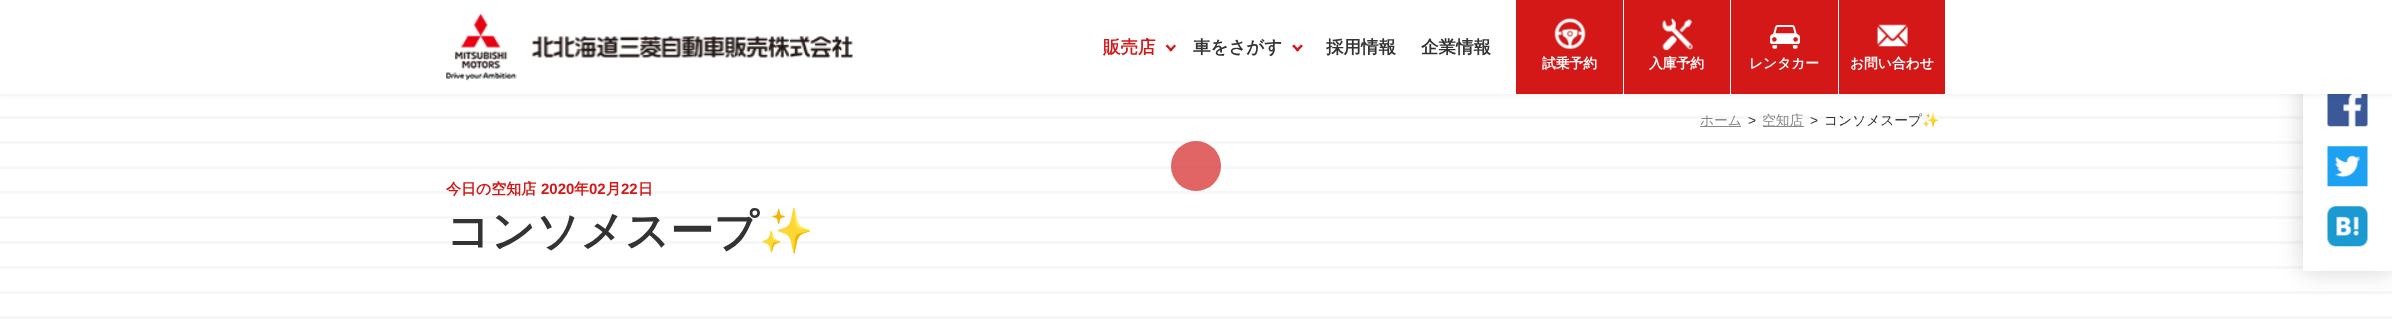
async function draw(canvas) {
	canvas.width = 2392;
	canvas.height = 332;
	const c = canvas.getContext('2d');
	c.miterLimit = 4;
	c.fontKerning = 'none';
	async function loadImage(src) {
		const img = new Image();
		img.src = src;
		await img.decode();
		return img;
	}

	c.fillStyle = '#fff';
	c.fillRect(0, 0, 2392, 332);
	for (const [x, y, w, h, color] of [
		[0, 116, 2303, 3, '#f7f7f7'],
		[0, 141, 2303, 3, '#f7f7f7'],
		[0, 166, 2303, 3, '#f7f7f7'],
		[0, 191, 2303, 3, '#f7f7f7'],
		[0, 216, 2303, 3, '#f7f7f7'],
		[0, 241, 2303, 3, '#f7f7f7'],
		[0, 266, 2303, 3, '#f7f7f7'],
		[0, 291, 2392, 3, '#f7f7f7'],
	]) {
		c.fillStyle = color;
		c.fillRect(x, y, w, h);
	}
	c.fillStyle = '#21212133';
	c.filter = 'blur(12.5px)';
	c.beginPath();
	c.rect(2303, 61, 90, 210);
	c.fill();
	c.filter = 'none';
	c.fillStyle = '#fff';
	c.fillRect(2303, 94, 89, 177);
	c.drawImage(await loadImage('img6.png'), 2327, 94, 41, 33);
	c.fillStyle = '#0000001a';
	c.filter = 'blur(3px)';
	c.beginPath();
	c.rect(0, 0, 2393, 94);
	c.fill();
	c.filter = 'none';
	c.fillStyle = '#fff';
	c.fillRect(0, 0, 2392, 94);
	c.drawImage(await loadImage('img1.png'), 446, 13, 407, 68);
	c.font = 'bold 17.5px WenQuanYi Zen Hei';
	c.fillStyle = '#d41717';
	c.fillText('販売店', 1103, 53);
	c.beginPath();
	c.moveTo(1169, 50);
	c.lineTo(1174.5, 44.5);
	c.lineTo(1176, 46);
	c.lineTo(1171, 51.5);
	c.closePath();
	c.fill();
	c.beginPath();
	c.moveTo(1165.5, 46);
	c.lineTo(1167.5, 44.5);
	c.lineTo(1172.5, 50);
	c.lineTo(1171, 51.5);
	c.closePath();
	c.fill();
	c.fillStyle = '#333';
	c.fillText('車をさがす', 1193, 53);
	c.fillStyle = '#d41717';
	c.beginPath();
	c.moveTo(1295.5, 50);
	c.lineTo(1301, 44.5);
	c.lineTo(1303, 46);
	c.lineTo(1297.5, 51.5);
	c.closePath();
	c.fill();
	c.beginPath();
	c.moveTo(1292, 46);
	c.lineTo(1294, 44.5);
	c.lineTo(1299.5, 50);
	c.lineTo(1297.5, 51.5);
	c.closePath();
	c.fill();
	c.fillStyle = '#333';
	c.fillText('採用情報', 1326, 53);
	c.fillText('企業情報', 1421, 53);
	c.fillStyle = '#d41717';
	c.fillRect(1516, 0, 107, 94);
	c.drawImage(await loadImage('img2.png'), 1554, 18, 32, 32);
	c.font = 'bold 13.75px WenQuanYi Zen Hei';
	c.fillStyle = '#fff';
	c.fillText('試乗予約', 1542, 68);
	c.fillStyle = '#d41717';
	c.fillRect(1624, 0, 106, 94);
	c.drawImage(await loadImage('img3.png'), 1662, 18, 31, 33);
	c.fillStyle = '#fff';
	c.fillText('入庫予約', 1649, 68);
	c.fillStyle = '#d41717';
	c.fillRect(1731, 0, 107, 94);
	c.drawImage(await loadImage('img4.png'), 1770, 25, 30, 24);
	c.fillStyle = '#fff';
	c.fillText('レンタカー', 1749, 68);
	c.fillStyle = '#d41717';
	c.fillRect(1839, 0, 106, 94);
	c.drawImage(await loadImage('img5.png'), 1876, 24, 32, 23);
	c.fillStyle = '#fff';
	c.fillText('お問い合わせ', 1850, 68);
	c.fillStyle = '#888';
	c.fillRect(1700, 126, 41, 1);
	c.font = '500 13.75px WenQuanYi Zen Hei';
	c.fillText('ホーム', 1700, 125);
	c.font = '13.75px Liberation Sans';
	c.fillStyle = '#333';
	c.fillText('>', 1748, 125);
	c.fillStyle = '#888';
	c.fillRect(1763, 126, 41, 1);
	c.font = '500 13.75px WenQuanYi Zen Hei';
	c.fillText('空知店', 1762, 125);
	c.font = '13.75px Liberation Sans';
	c.fillStyle = '#333';
	c.fillText('>', 1810, 125);
	c.font = '500 13.75px WenQuanYi Zen Hei';
	c.fillText('コンソメスープ', 1824, 125);
	c.font = '13.75px Noto Color Emoji';
	c.fillText('✨', 1922, 125);
	c.fillStyle = '#f7f7f7';
	c.fillRect(0, 316, 2392, 3);
	c.font = 'bold 15px WenQuanYi Zen Hei';
	c.fillStyle = '#d41717';
	c.fillText('今日の空知店', 446, 194);
	c.font = 'bold 15px Liberation Sans';
	c.fillText('2020', 541, 194);
	c.font = 'bold 15px WenQuanYi Zen Hei';
	c.fillText('年', 574, 194);
	c.font = 'bold 15px Liberation Sans';
	c.fillText('02', 589, 194);
	c.font = 'bold 15px WenQuanYi Zen Hei';
	c.fillText('月', 606, 194);
	c.font = 'bold 15px Liberation Sans';
	c.fillText('22', 621, 194);
	c.font = 'bold 15px WenQuanYi Zen Hei';
	c.fillText('日', 638, 194);
	c.font = 'bold 43.75px WenQuanYi Zen Hei';
	c.fillStyle = '#333';
	c.fillText('コンソメスープ', 446, 246);
	c.font = 'bold 43.75px Noto Color Emoji';
	c.fillText('✨', 759, 246);
	c.drawImage(await loadImage('img7.png'), 2327, 146, 41, 41);
	c.drawImage(await loadImage('img8.png'), 2327, 206, 41, 41);
	c.fillStyle = '#d417176b';
	c.beginPath();
	c.arc(1196, 166, 25, 0, 2 * Math.PI);
	c.fill();
	c.beginPath();
	c.arc(1196, 166, 25, 0, 2 * Math.PI);
	c.fill();
}

draw(document.querySelector('canvas'));
